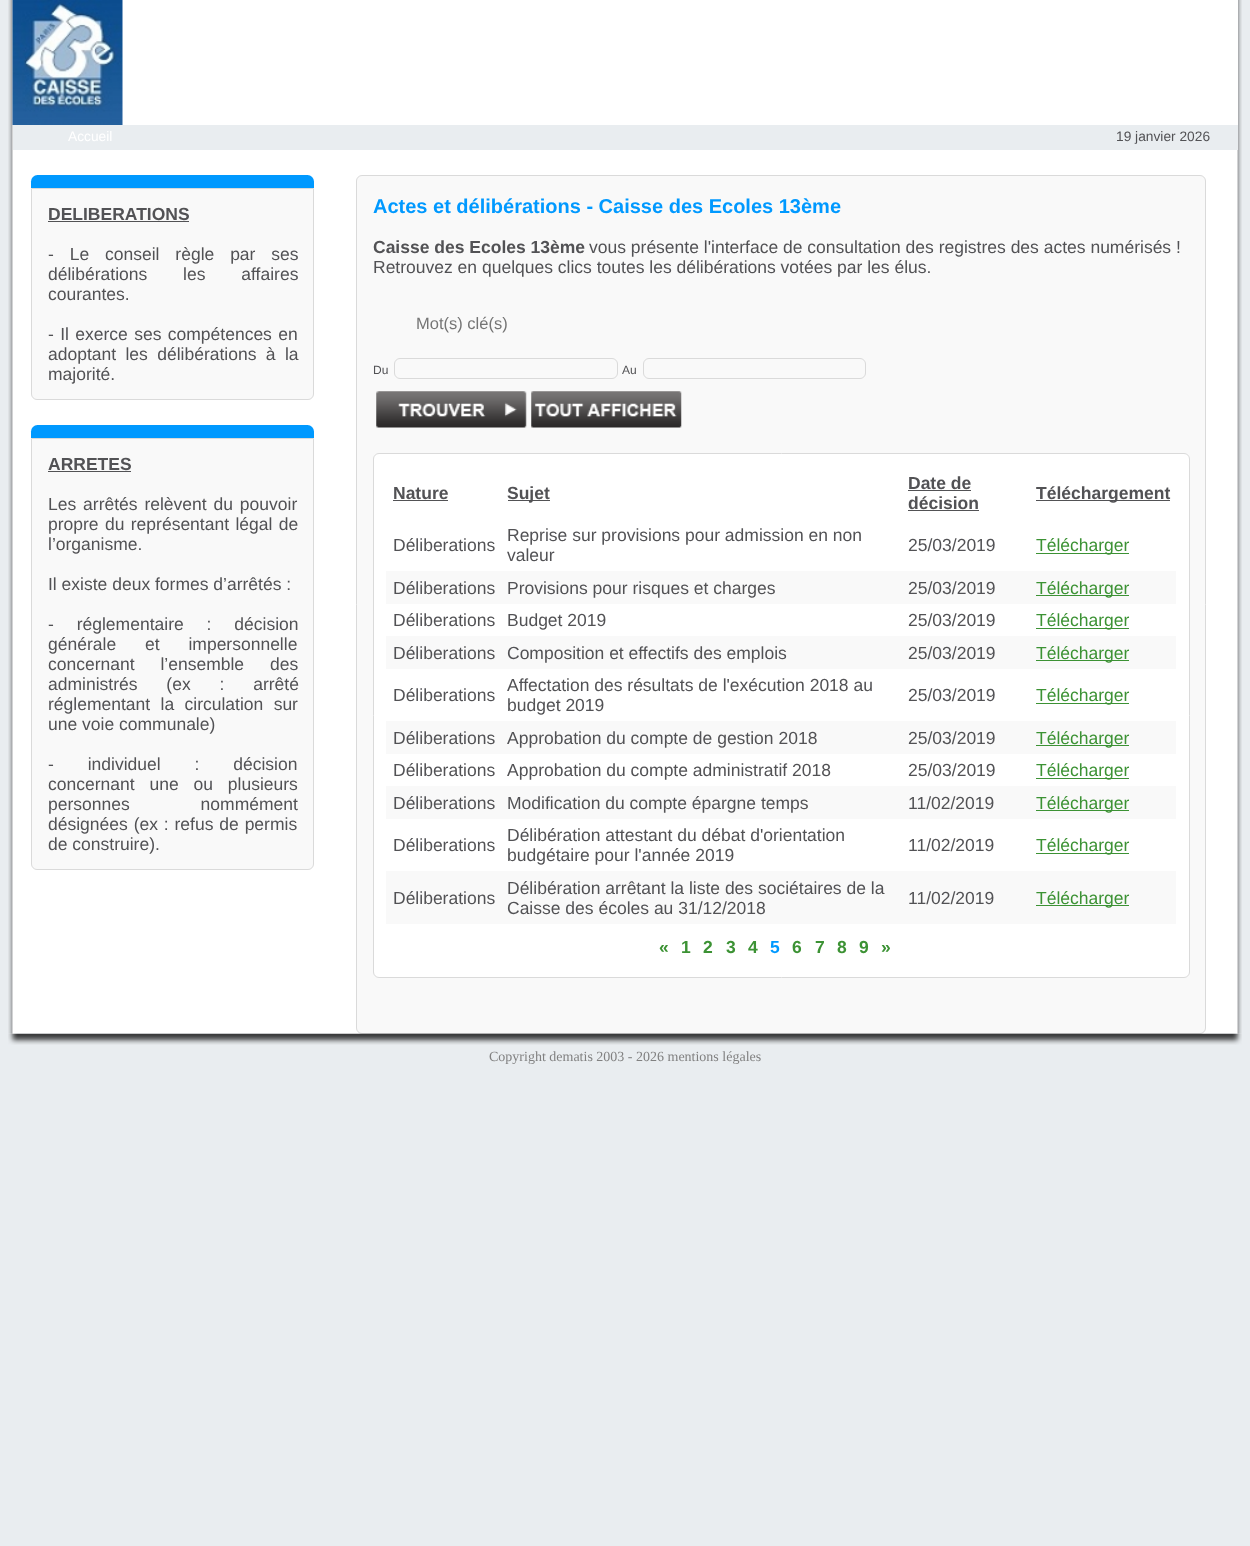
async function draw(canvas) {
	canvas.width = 1250;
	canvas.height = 1546;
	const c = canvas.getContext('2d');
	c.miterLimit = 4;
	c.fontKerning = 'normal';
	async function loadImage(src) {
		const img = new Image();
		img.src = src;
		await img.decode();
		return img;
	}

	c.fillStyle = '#e9edf0';
	c.fillRect(0, 0, 1250, 1546);
	c.drawImage(await loadImage('img1.png'), 8, 0, 1234, 1034);
	c.fillStyle = '#fff';
	c.fillRect(1237, 0, 1, 125);
	c.drawImage(await loadImage('img2.png'), 12, 0, 111, 125);
	c.fillStyle = '#e9edf0';
	c.fillRect(13, 125, 1225, 25);
	c.font = '13.75px Liberation Sans';
	c.fillStyle = '#fff';
	c.fillText('Accueil', 68, 141);
	c.fillStyle = '#525255';
	c.fillText('19 janvier 2026', 1116, 141);
	c.fillStyle = '#09f';
	c.beginPath();
	c.roundRect(31, 175, 283, 13, [6.5, 6.5, 0, 0]);
	c.fill();
	c.fillStyle = '#f9f9f9';
	c.beginPath();
	c.roundRect(31.5, 188.5, 282, 211, [0, 0, 5.5, 5.5]);
	c.fill();
	c.strokeStyle = '#dadada';
	c.stroke();
	c.font = 'bold 17.5px Liberation Sans';
	c.fillStyle = '#525255';
	c.fillText('DELIBERATIONS', 48, 220);
	c.fillRect(48, 221, 141, 1);
	c.wordSpacing = '11px';
	c.font = '17.5px Liberation Sans';
	c.fillText('- Le conseil règle par ses', 48, 260);
	c.wordSpacing = '31px';
	c.fillText('délibérations les affaires', 48, 280);
	c.wordSpacing = '0px';
	c.fillText('courantes.', 48, 300);
	c.wordSpacing = '1.5px';
	c.fillText('- Il exerce ses compétences en', 48, 340);
	c.wordSpacing = '4.5px';
	c.fillText('adoptant les délibérations à la', 48, 360);
	c.wordSpacing = '0px';
	c.fillText('majorité.', 48, 380);
	c.fillStyle = '#09f';
	c.beginPath();
	c.roundRect(31, 425, 283, 13, [6.5, 6.5, 0, 0]);
	c.fill();
	c.fillStyle = '#f9f9f9';
	c.beginPath();
	c.roundRect(31.5, 438.5, 282, 431, [0, 0, 5.5, 5.5]);
	c.fill();
	c.stroke();
	c.font = 'bold 17.5px Liberation Sans';
	c.fillStyle = '#525255';
	c.fillText('ARRETES', 48, 470);
	c.fillRect(48, 471, 83, 1);
	c.wordSpacing = '2px';
	c.font = '17.5px Liberation Sans';
	c.fillText('Les arrêtés relèvent du pouvoir', 48, 510);
	c.wordSpacing = '1.5px';
	c.fillText('propre du représentant légal de', 48, 530);
	c.wordSpacing = '0px';
	c.fillText('l’organisme.', 48, 550);
	c.fillText('Il existe deux formes d’arrêtés :', 48, 590);
	c.wordSpacing = '18px';
	c.fillText('- réglementaire : décision', 48, 630);
	c.wordSpacing = '24px';
	c.fillText('générale et impersonnelle', 48, 650);
	c.wordSpacing = '21px';
	c.fillText('concernant l’ensemble des', 48, 670);
	c.wordSpacing = '24px';
	c.fillText('administrés (ex : arrêté', 48, 690);
	c.wordSpacing = '5.5px';
	c.fillText('réglementant la circulation sur', 48, 710);
	c.wordSpacing = '0px';
	c.fillText('une voie communale)', 48, 730);
	c.wordSpacing = '29px';
	c.fillText('- individuel : décision', 48, 770);
	c.wordSpacing = '10px';
	c.fillText('concernant une ou plusieurs', 48, 790);
	c.wordSpacing = '66px';
	c.fillText('personnes nommément', 48, 810);
	c.wordSpacing = '1px';
	c.fillText('désignées (ex : refus de permis', 48, 830);
	c.wordSpacing = '0px';
	c.fillText('de construire).', 48, 850);
	c.fillStyle = '#fff';
	c.fillRect(331, 1033, 875, 1);
	c.fillStyle = '#f9f9f9';
	c.beginPath();
	c.roundRect(356.5, 175.5, 849, 858, 5.5);
	c.fill();
	c.stroke();
	c.font = 'bold 20px Liberation Sans';
	c.fillStyle = '#09f';
	c.fillText('Actes et délibérations - Caisse des Ecoles 13ème', 373, 213);
	c.font = 'bold 17.5px Liberation Sans';
	c.fillStyle = '#525255';
	c.fillText('Caisse des Ecoles 13ème', 373, 253);
	c.font = '17.5px Liberation Sans';
	c.fillText('vous présente l\'interface de consultation des registres des actes numérisés !', 589, 253);
	c.fillText('Retrouvez en quelques clics toutes les délibérations votées par les élus.', 373, 273);
	c.font = '16.5px Liberation Sans';
	c.fillStyle = '#757575';
	c.fillText('Mot(s) clé(s)', 416, 329);
	c.font = '12px Liberation Sans';
	c.fillStyle = '#525255';
	c.fillText('Du', 373, 374);
	c.beginPath();
	c.roundRect(394.5, 358.5, 223, 20, 5.5);
	c.stroke();
	c.fillText('Au', 622, 374);
	c.beginPath();
	c.roundRect(643.5, 358.5, 222, 20, 5.5);
	c.stroke();
	c.drawImage(await loadImage('img3.png'), 376, 391, 151, 37);
	c.drawImage(await loadImage('img4.png'), 531, 391, 151, 37);
	c.fillStyle = '#fff';
	c.beginPath();
	c.roundRect(373.5, 453.5, 816, 524, 5.5);
	c.fill();
	c.stroke();
	c.font = 'bold 17.5px Liberation Sans';
	c.fillStyle = '#525255';
	c.fillText('Nature', 393, 499);
	c.fillRect(393, 500, 55, 1);
	c.fillRect(508, 500, 42, 1);
	c.fillText('Sujet', 507, 499);
	c.fillText('Date de', 908, 489);
	c.fillRect(908, 490, 63, 1);
	c.fillText('décision', 908, 509);
	c.fillRect(908, 510, 71, 1);
	c.fillRect(1036, 500, 134, 1);
	c.fillText('Téléchargement', 1036, 499);
	c.font = '17.5px Liberation Sans';
	for (const [text, x, y] of [
		['Déliberations', 393, 551],
		['Reprise sur provisions pour admission en non', 507, 541],
		['valeur', 507, 561],
		['25/03/2019', 908, 551],
	]) {
		c.fillText(text, x, y);
	}
	c.fillStyle = '#3c9234';
	c.fillRect(1036, 553, 93, 1);
	c.fillText('Télécharger', 1036, 551);
	c.fillStyle = '#f9f9f9';
	c.fillRect(386, 571, 790, 33);
	c.fillStyle = '#525255';
	for (const [text, x, y] of [
		['Déliberations', 393, 594],
		['Provisions pour risques et charges', 507, 594],
		['25/03/2019', 908, 594],
	]) {
		c.fillText(text, x, y);
	}
	c.fillStyle = '#3c9234';
	c.fillRect(1036, 595, 93, 1);
	c.fillText('Télécharger', 1036, 594);
	c.fillStyle = '#525255';
	for (const [text, x, y] of [
		['Déliberations', 393, 626],
		['Budget 2019', 507, 626],
		['25/03/2019', 908, 626],
	]) {
		c.fillText(text, x, y);
	}
	c.fillStyle = '#3c9234';
	c.fillRect(1036, 628, 93, 1);
	c.fillText('Télécharger', 1036, 626);
	c.fillStyle = '#f9f9f9';
	c.fillRect(386, 636, 790, 33);
	c.fillStyle = '#525255';
	for (const [text, x, y] of [
		['Déliberations', 393, 659],
		['Composition et effectifs des emplois', 507, 659],
		['25/03/2019', 908, 659],
	]) {
		c.fillText(text, x, y);
	}
	c.fillStyle = '#3c9234';
	c.fillRect(1036, 660, 93, 1);
	c.fillText('Télécharger', 1036, 659);
	c.fillStyle = '#525255';
	for (const [text, x, y] of [
		['Déliberations', 393, 701],
		['Affectation des résultats de l\'exécution 2018 au', 507, 691],
		['budget 2019', 507, 711],
		['25/03/2019', 908, 701],
	]) {
		c.fillText(text, x, y);
	}
	c.fillStyle = '#3c9234';
	c.fillRect(1036, 703, 93, 1);
	c.fillText('Télécharger', 1036, 701);
	c.fillStyle = '#f9f9f9';
	c.fillRect(386, 721, 790, 33);
	c.fillStyle = '#525255';
	for (const [text, x, y] of [
		['Déliberations', 393, 744],
		['Approbation du compte de gestion 2018', 507, 744],
		['25/03/2019', 908, 744],
	]) {
		c.fillText(text, x, y);
	}
	c.fillStyle = '#3c9234';
	c.fillRect(1036, 745, 93, 1);
	c.fillText('Télécharger', 1036, 744);
	c.fillStyle = '#525255';
	for (const [text, x, y] of [
		['Déliberations', 393, 776],
		['Approbation du compte administratif 2018', 507, 776],
		['25/03/2019', 908, 776],
	]) {
		c.fillText(text, x, y);
	}
	c.fillStyle = '#3c9234';
	c.fillRect(1036, 778, 93, 1);
	c.fillText('Télécharger', 1036, 776);
	c.fillStyle = '#f9f9f9';
	c.fillRect(386, 786, 790, 33);
	c.fillStyle = '#525255';
	for (const [text, x, y] of [
		['Déliberations', 393, 809],
		['Modification du compte épargne temps', 507, 809],
		['11/02/2019', 908, 809],
	]) {
		c.fillText(text, x, y);
	}
	c.fillStyle = '#3c9234';
	c.fillRect(1036, 810, 93, 1);
	c.fillText('Télécharger', 1036, 809);
	c.fillStyle = '#525255';
	for (const [text, x, y] of [
		['Déliberations', 393, 851],
		['Délibération attestant du débat d\'orientation', 507, 841],
		['budgétaire pour l\'année 2019', 507, 861],
		['11/02/2019', 908, 851],
	]) {
		c.fillText(text, x, y);
	}
	c.fillStyle = '#3c9234';
	c.fillRect(1036, 853, 93, 1);
	c.fillText('Télécharger', 1036, 851);
	c.fillStyle = '#f9f9f9';
	c.fillRect(386, 871, 790, 53);
	c.fillStyle = '#525255';
	for (const [text, x, y] of [
		['Déliberations', 393, 904],
		['Délibération arrêtant la liste des sociétaires de la', 507, 894],
		['Caisse des écoles au 31/12/2018', 507, 914],
		['11/02/2019', 908, 904],
	]) {
		c.fillText(text, x, y);
	}
	c.fillStyle = '#3c9234';
	c.fillRect(1036, 905, 93, 1);
	c.fillText('Télécharger', 1036, 904);
	c.font = 'bold 17.5px Liberation Sans';
	for (const [text, x, y] of [
		['«', 659, 953],
		['1', 681, 953],
		['2', 703, 953],
		['3', 726, 953],
		['4', 748, 953],
	]) {
		c.fillText(text, x, y);
	}
	c.fillStyle = '#09f';
	c.fillText('5', 770, 953);
	c.fillStyle = '#3c9234';
	for (const [text, x, y] of [
		['6', 792, 953],
		['7', 815, 953],
		['8', 837, 953],
		['9', 859, 953],
		['»', 881, 953],
	]) {
		c.fillText(text, x, y);
	}
	c.drawImage(await loadImage('img5.png'), 8, 1033, 1234, 12);
	c.font = '14px Liberation Serif';
	c.fillStyle = '#818181';
	c.fillText('Copyright dematis 2003 - 2026 mentions légales', 489, 1061);
}

draw(document.querySelector('canvas'));
